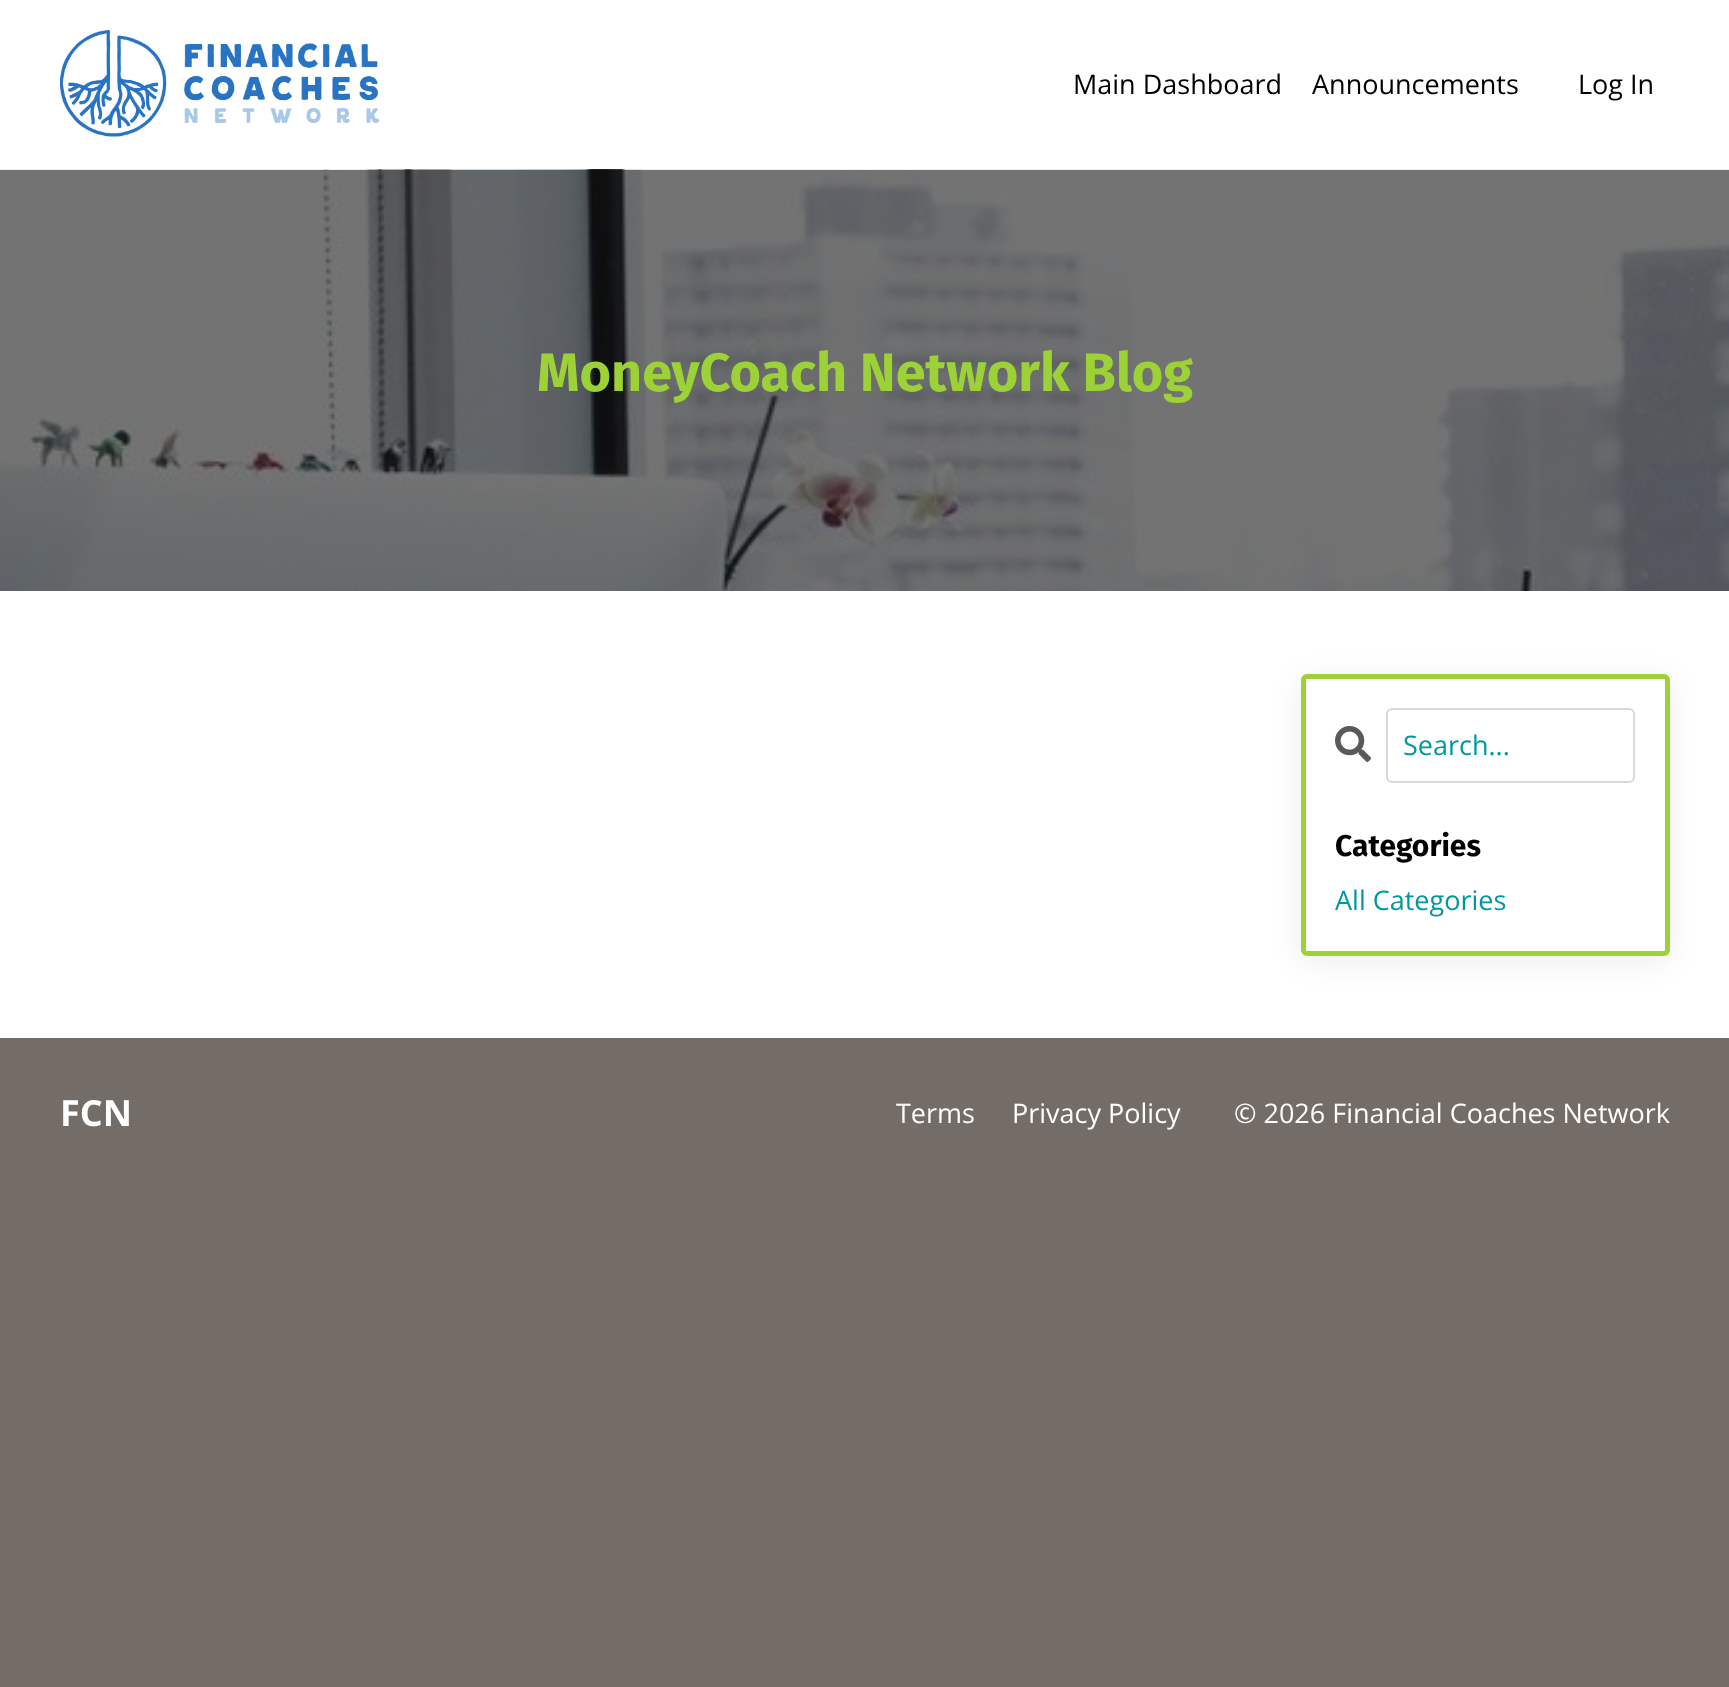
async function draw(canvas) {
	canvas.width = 1729;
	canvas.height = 1687;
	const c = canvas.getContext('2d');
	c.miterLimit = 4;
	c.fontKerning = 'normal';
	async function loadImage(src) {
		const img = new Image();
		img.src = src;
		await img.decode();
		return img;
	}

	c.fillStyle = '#fff';
	c.fillRect(0, 0, 1729, 1687);
	c.drawImage(await loadImage('img1.png'), 60, 30, 320, 107);
	c.font = '27px Open Sans';
	c.fillStyle = '#000';
	for (const [text, x, y] of [
		['Main Dashboard', 1073, 94],
		['Announcements', 1312, 94],
		['Log In', 1578, 94],
	]) {
		c.fillText(text, x, y);
	}
	c.drawImage(await loadImage('img2.png'), 0, 169, 1729, 422);
	c.font = 'bold 54px Fira Sans';
	c.fillStyle = '#9cd235';
	c.fillText('MoneyCoach Network Blog', 537, 391);
	c.fillStyle = '#00000012';
	c.filter = 'blur(15px)';
	c.beginPath();
	c.roundRect(1301, 680, 369, 282, 6);
	c.fill();
	c.filter = 'none';
	c.fillStyle = '#fff';
	c.beginPath();
	c.roundRect(1303.5, 676.5, 364, 277, 3.5);
	c.fill();
	c.strokeStyle = '#9cd235';
	c.lineWidth = 5;
	c.stroke();
	c.drawImage(await loadImage('img3.png'), 1335, 726, 36, 36);
	c.beginPath();
	c.roundRect(1387, 709, 247, 73, 5);
	c.strokeStyle = '#d9d9d9';
	c.lineWidth = 2;
	c.stroke();
	c.font = '27px Open Sans';
	c.fillStyle = '#00989e';
	c.fillText('Search...', 1403, 755);
	c.font = 'bold 30px Fira Sans';
	c.fillStyle = '#000';
	c.fillText('Categories', 1335, 856);
	c.font = '27px Open Sans';
	c.fillStyle = '#00989e';
	c.fillText('All Categories', 1335, 910);
	c.fillStyle = '#736c67';
	c.fillRect(0, 1038, 1729, 649);
	c.font = 'bold 36px Open Sans';
	c.fillStyle = '#fff';
	c.fillText('FCN', 60, 1126);
	c.font = '27px Open Sans';
	for (const [text, x, y] of [
		['Terms', 896, 1123],
		['Privacy Policy', 1012, 1123],
		['© 2026 Financial Coaches Network', 1234, 1123],
	]) {
		c.fillText(text, x, y);
	}
}

draw(document.querySelector('canvas'));
